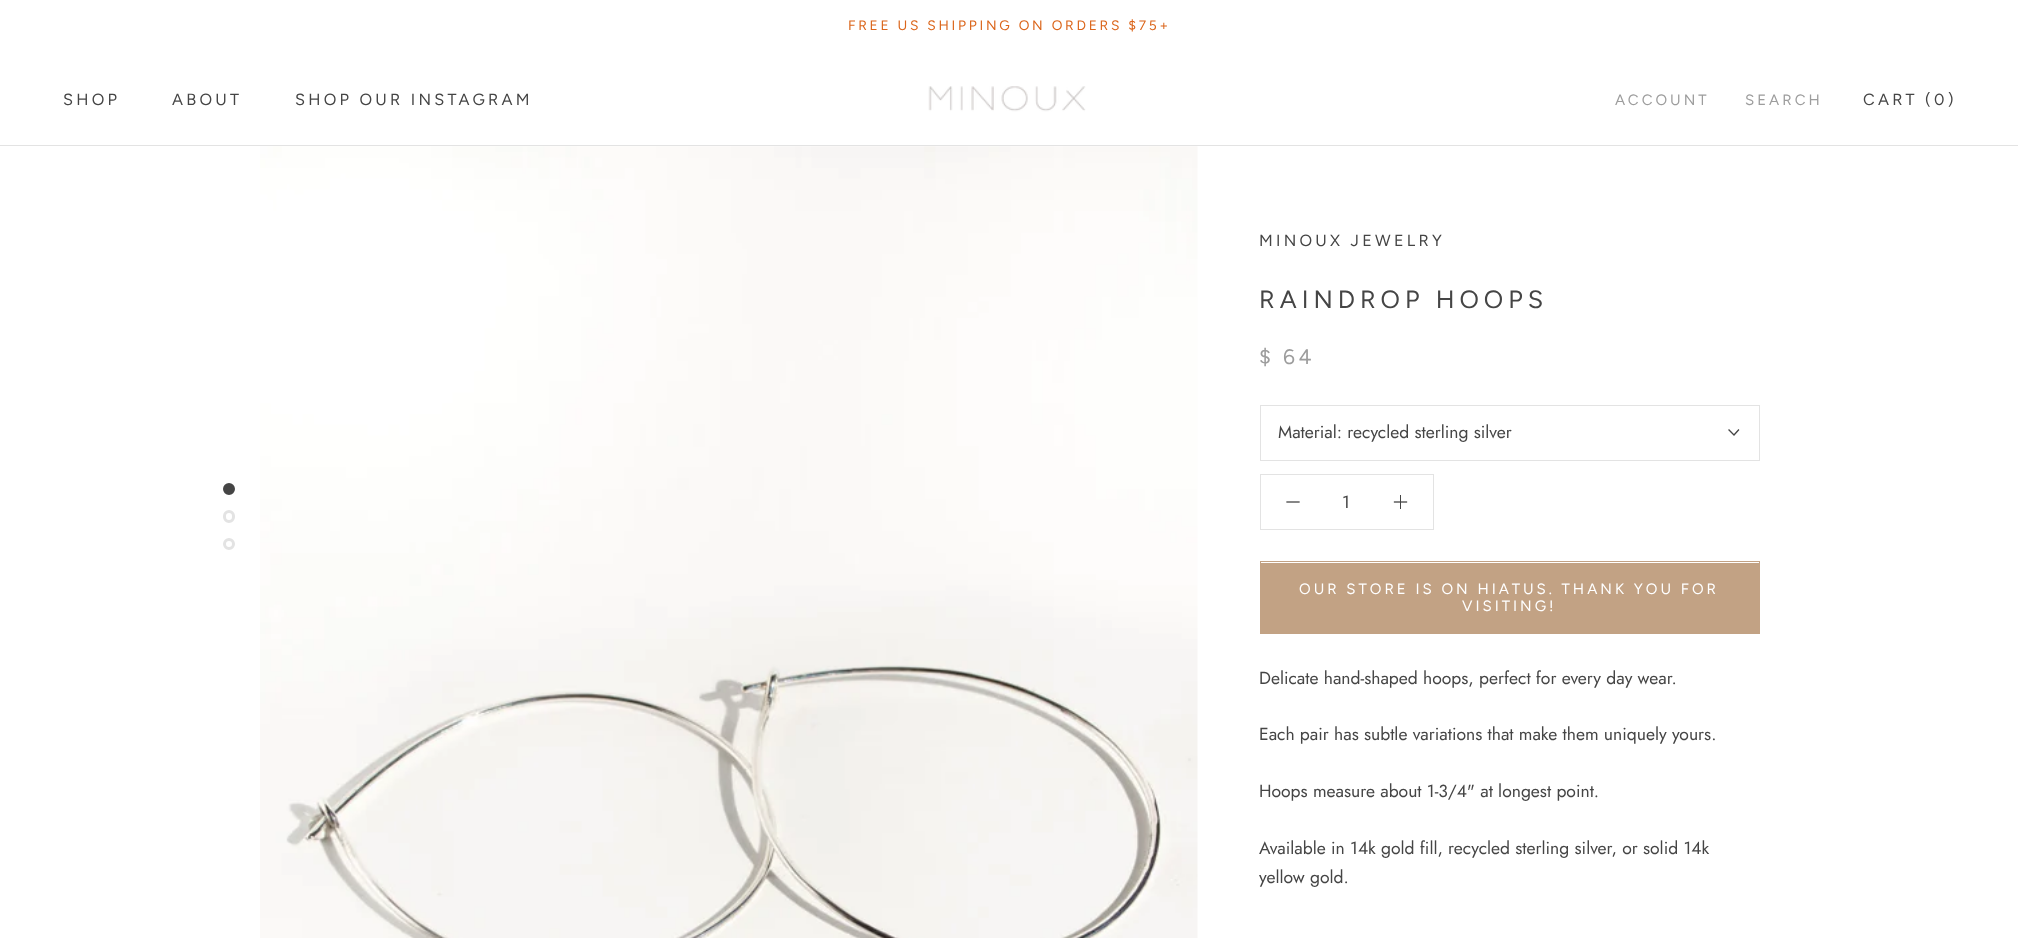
async function draw(canvas) {
	canvas.width = 2018;
	canvas.height = 938;
	const c = canvas.getContext('2d');
	c.miterLimit = 4;
	c.fontKerning = 'normal';
	async function loadImage(src) {
		const img = new Image();
		img.src = src;
		await img.decode();
		return img;
	}

	c.fillStyle = '#fff';
	c.fillRect(0, 0, 2018, 938);
	c.letterSpacing = '2.75px';
	c.font = '13.75px Figtree';
	c.fillStyle = '#db651a';
	c.fillText('FREE US SHIPPING ON ORDERS $75+', 848, 30);
	c.fillStyle = '#e3e3e3';
	c.fillRect(0, 145, 2018, 1);
	c.letterSpacing = '3.25px';
	c.font = '16.25px Figtree';
	c.fillStyle = '#454545';
	for (const [text, x, y] of [
		['SHOP', 63, 105],
		['ABOUT', 172, 105],
		['SHOP OUR INSTAGRAM', 295, 105],
	]) {
		c.fillText(text, x, y);
	}
	c.drawImage(await loadImage('img1.png'), 928, 86, 158, 26);
	c.letterSpacing = '3px';
	c.font = '15px Figtree';
	c.fillStyle = '#9d9d9d';
	c.fillText('ACCOUNT', 1615, 105);
	c.fillText('SEARCH', 1745, 105);
	c.letterSpacing = '3.25px';
	c.font = '16.25px Figtree';
	c.fillStyle = '#454545';
	c.fillText('CART (0)', 1863, 105);
	c.beginPath();
	c.arc(229, 489, 4.5, 0, 2 * Math.PI);
	c.fill();
	c.strokeStyle = '#454545';
	c.lineWidth = 3;
	c.stroke();
	c.beginPath();
	c.roundRect(224.5, 511.5, 9, 10, 4.5);
	c.strokeStyle = '#e3e3e3';
	c.stroke();
	c.beginPath();
	c.arc(229, 544, 4.5, 0, 2 * Math.PI);
	c.stroke();
	c.drawImage(await loadImage('img2.png'), 260, 146, 938, 792);
	c.fillText('MINOUX JEWELRY', 1259, 246);
	c.letterSpacing = '5px';
	c.font = '25px Figtree';
	c.fillText('RAINDROP HOOPS', 1259, 308);
	c.letterSpacing = '3.5px';
	c.font = '21px Figtree';
	c.fillStyle = '#9d9d9d';
	c.fillText('$ 64', 1259, 364);
	c.lineWidth = 1;
	c.strokeRect(1260.5, 405.5, 499, 55);
	c.letterSpacing = '0px';
	c.font = '17.5px Jost';
	c.fillStyle = '#454545';
	c.fillText('Material: recycled sterling silver', 1278, 438);
	c.beginPath();
	c.moveTo(1738.5, 430);
	c.lineTo(1734, 435);
	c.lineTo(1729, 430);
	c.strokeStyle = '#454545';
	c.lineWidth = 1.3;
	c.lineCap = 'square';
	c.stroke();
	c.strokeStyle = '#e3e3e3';
	c.lineWidth = 1;
	c.strokeRect(1260.5, 474.5, 173, 55);
	c.beginPath();
	c.moveTo(1287, 502);
	c.lineTo(1299, 502);
	c.strokeStyle = '#454545';
	c.lineWidth = 1.3;
	c.stroke();
	c.fillText('1', 1342, 508);
	c.fillRect(1400, 495, 1, 14);
	c.beginPath();
	c.moveTo(1394.5, 502);
	c.lineTo(1406.5, 502);
	c.stroke();
	c.strokeStyle = '#c2a284';
	c.lineWidth = 1;
	c.strokeRect(1260.5, 561.5, 499, 72);
	c.fillStyle = '#c2a284';
	c.fillRect(1261, 563, 498, 70);
	c.letterSpacing = '3px';
	c.font = '15px Figtree';
	c.fillStyle = '#fff';
	c.fillText('OUR STORE IS ON HIATUS. THANK YOU FOR', 1299, 594);
	c.fillText('VISITING!', 1462, 611);
	c.letterSpacing = '0px';
	c.font = '17.5px Jost';
	c.fillStyle = '#454545';
	for (const [text, x, y] of [
		['Delicate hand-shaped hoops, perfect for every day wear.', 1259, 684],
		['Each pair has subtle variations that make them uniquely yours.', 1259, 740],
		['Hoops measure about 1-3/4" at longest point.', 1259, 797],
		['Available in 14k gold fill, recycled sterling silver, or solid 14k', 1259, 854],
		['yellow gold.', 1259, 883],
	]) {
		c.fillText(text, x, y);
	}
}

draw(document.querySelector('canvas'));
